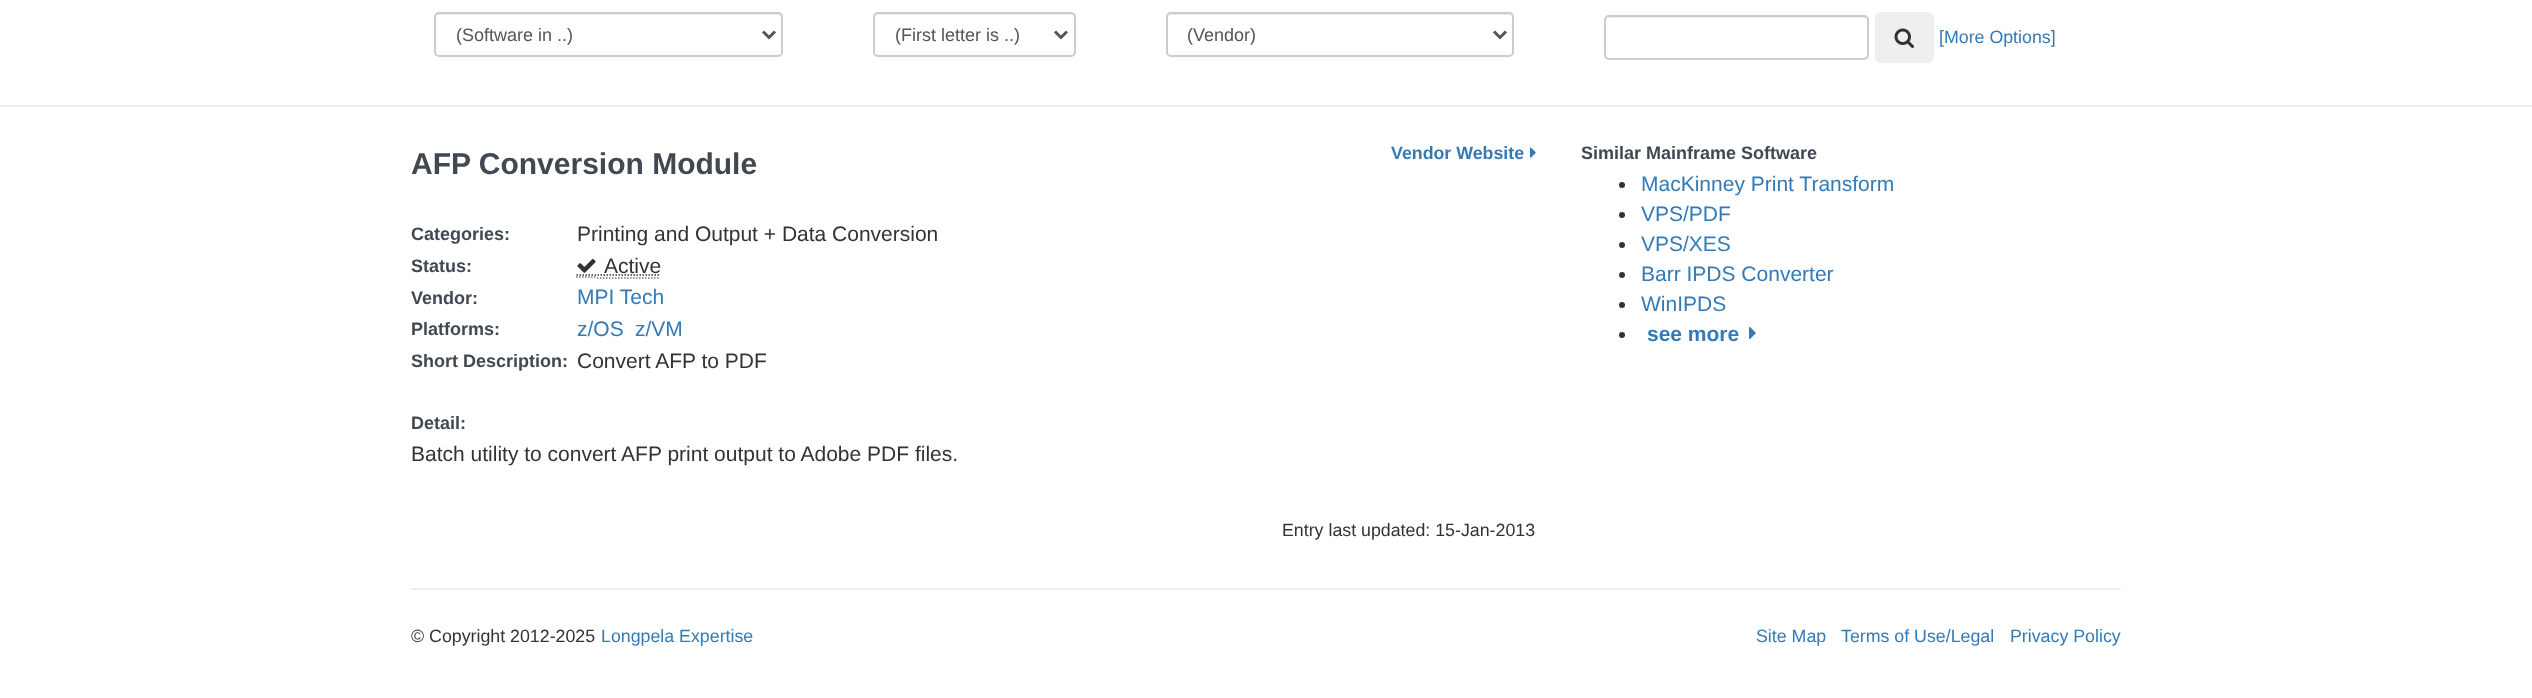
async function draw(canvas) {
	canvas.width = 2532;
	canvas.height = 698;
	const c = canvas.getContext('2d');
	c.miterLimit = 4;
	c.fontKerning = 'normal';
	async function loadImage(src) {
		const img = new Image();
		img.src = src;
		await img.decode();
		return img;
	}

	c.fillStyle = '#fff';
	c.fillRect(0, 0, 2532, 698);
	c.fillStyle = '#ececec';
	c.beginPath();
	c.moveTo(438, 15);
	c.lineTo(778, 15);
	c.bezierCurveTo(780, 15, 782, 16, 782, 18);
	c.bezierCurveTo(782, 16, 781, 14, 779, 14);
	c.lineTo(438, 14);
	c.lineTo(436, 15);
	c.lineTo(435, 18);
	c.bezierCurveTo(435, 16, 436, 15, 438, 15);
	c.closePath();
	c.fill();
	c.beginPath();
	c.roundRect(435, 13, 347, 43, 4);
	c.strokeStyle = '#ccc';
	c.lineWidth = 2;
	c.stroke();
	c.beginPath();
	c.moveTo(763, 31.5);
	c.lineTo(769, 37.5);
	c.lineTo(775, 31.5);
	c.strokeStyle = '#555';
	c.lineWidth = 3;
	c.stroke();
	c.font = '18px Liberation Sans';
	c.fillStyle = '#555';
	c.fillText('(Software in ..)', 456, 41);
	c.fillStyle = '#ececec';
	c.beginPath();
	c.moveTo(878, 15);
	c.lineTo(1071, 15);
	c.bezierCurveTo(1073, 15, 1074, 16, 1074, 18);
	c.lineTo(1074, 17);
	c.bezierCurveTo(1074, 15, 1073, 14, 1071, 14);
	c.lineTo(878, 14);
	c.bezierCurveTo(877, 14, 876, 15, 875, 16);
	c.closePath();
	c.fill();
	c.beginPath();
	c.roundRect(874, 13, 201, 43, 4);
	c.strokeStyle = '#ccc';
	c.lineWidth = 2;
	c.stroke();
	c.beginPath();
	c.moveTo(1055, 31.5);
	c.lineTo(1061, 37.5);
	c.lineTo(1067, 31.5);
	c.strokeStyle = '#555';
	c.lineWidth = 3;
	c.stroke();
	c.fillStyle = '#555';
	c.fillText('(First letter is ..)', 895, 41);
	c.fillStyle = '#ececec';
	c.beginPath();
	c.moveTo(1170, 15);
	c.lineTo(1509, 15);
	c.bezierCurveTo(1511, 15, 1512, 16, 1512, 18);
	c.bezierCurveTo(1512, 16, 1511, 14, 1509, 14);
	c.lineTo(1170, 14);
	c.lineTo(1168, 15);
	c.lineTo(1167, 18);
	c.bezierCurveTo(1167, 16, 1168, 15, 1170, 15);
	c.closePath();
	c.fill();
	c.beginPath();
	c.roundRect(1167, 13, 346, 43, 4);
	c.strokeStyle = '#ccc';
	c.lineWidth = 2;
	c.stroke();
	c.beginPath();
	c.moveTo(1494, 31.5);
	c.lineTo(1500, 37.5);
	c.lineTo(1506, 31.5);
	c.strokeStyle = '#555';
	c.lineWidth = 3;
	c.stroke();
	c.fillStyle = '#555';
	c.fillText('(Vendor)', 1187, 41);
	c.fillStyle = '#ececec';
	c.beginPath();
	c.moveTo(1608, 18);
	c.lineTo(1864, 18);
	c.bezierCurveTo(1866, 18, 1868, 19, 1868, 21);
	c.lineTo(1868, 20);
	c.bezierCurveTo(1868, 18, 1867, 17, 1865, 17);
	c.lineTo(1608, 17);
	c.bezierCurveTo(1606, 17, 1605, 18, 1605, 20);
	c.lineTo(1605, 21);
	c.bezierCurveTo(1605, 19, 1606, 18, 1608, 18);
	c.closePath();
	c.fill();
	c.beginPath();
	c.roundRect(1605, 16, 263, 43, 4);
	c.strokeStyle = '#ccc';
	c.lineWidth = 2;
	c.stroke();
	c.fillStyle = '#efefef';
	c.beginPath();
	c.roundRect(1875, 12, 59, 51, 6);
	c.fill();
	c.drawImage(await loadImage('img1.png'), 1894, 28, 20, 20);
	c.font = '17.8px Liberation Sans';
	c.fillStyle = '#337ab7';
	c.fillText('[More Options]', 1939, 43);
	c.fillStyle = '#eee';
	c.fillRect(0, 105, 2532, 2);
	c.font = 'bold 30px Liberation Sans';
	c.fillStyle = '#404952';
	c.fillText('AFP Conversion Module', 411, 174);
	c.font = 'bold 17.8px Liberation Sans';
	c.fillStyle = '#337ab7';
	c.fillText('Vendor Website', 1391, 159);
	c.drawImage(await loadImage('img2.png'), 1530, 147, 6, 11);
	c.font = 'bold 18px Liberation Sans';
	c.fillStyle = '#404952';
	c.fillText('Categories:', 411, 240);
	c.font = '21px Liberation Sans';
	c.fillStyle = '#333';
	c.fillText('Printing and Output + Data Conversion', 577, 241);
	c.font = 'bold 18px Liberation Sans';
	c.fillStyle = '#404952';
	c.fillText('Status:', 411, 272);
	c.beginPath();
	c.moveTo(576, 277);
	c.lineTo(597, 277);
	c.strokeStyle = '#777';
	c.lineWidth = 1.5;
	c.setLineDash([1.5, 1.5]);
	c.stroke();
	c.beginPath();
	c.moveTo(597, 278);
	c.lineTo(660, 278);
	c.stroke();
	c.beginPath();
	c.moveTo(576.5, 275);
	c.lineTo(597.5, 275);
	c.strokeStyle = '#333';
	c.stroke();
	c.drawImage(await loadImage('img3.png'), 577, 258, 19, 15);
	c.font = '21px Liberation Sans';
	c.fillStyle = '#333';
	c.fillText('Active', 604, 273);
	c.beginPath();
	c.moveTo(597.5, 275);
	c.lineTo(660.5, 275);
	c.stroke();
	c.font = 'bold 18px Liberation Sans';
	c.fillStyle = '#404952';
	c.fillText('Vendor:', 411, 304);
	c.font = '21px Liberation Sans';
	c.fillStyle = '#337ab7';
	c.fillText('MPI Tech', 577, 304);
	c.font = 'bold 18px Liberation Sans';
	c.fillStyle = '#404952';
	c.fillText('Platforms:', 411, 335);
	c.font = '21px Liberation Sans';
	c.fillStyle = '#337ab7';
	c.fillText('z/OS', 577, 336);
	c.fillText('z/VM', 635, 336);
	c.font = 'bold 18px Liberation Sans';
	c.fillStyle = '#404952';
	c.fillText('Short Description:', 411, 367);
	c.font = '21px Liberation Sans';
	c.fillStyle = '#333';
	c.fillText('Convert AFP to PDF', 577, 368);
	c.font = 'bold 18px Liberation Sans';
	c.fillStyle = '#404952';
	c.fillText('Detail:', 411, 429);
	c.font = '21px Liberation Sans';
	c.fillStyle = '#333';
	c.fillText('Batch utility to convert AFP print output to Adobe PDF files.', 411, 461);
	c.font = '17.8px Liberation Sans';
	c.fillText('Entry last updated: 15-Jan-2013', 1282, 536);
	c.font = 'bold 18px Liberation Sans';
	c.fillStyle = '#404952';
	c.fillText('Similar Mainframe Software', 1581, 159);
	c.fillStyle = '#333';
	c.beginPath();
	c.arc(1622, 185, 3, 0, 2 * Math.PI);
	c.fill();
	c.font = '21px Liberation Sans';
	c.fillStyle = '#337ab7';
	c.fillText('MacKinney Print Transform', 1641, 191);
	c.fillStyle = '#333';
	c.beginPath();
	c.arc(1622, 215, 3, 0, 2 * Math.PI);
	c.fill();
	c.fillStyle = '#337ab7';
	c.fillText('VPS/PDF', 1641, 221);
	c.fillStyle = '#333';
	c.beginPath();
	c.arc(1622, 245, 3, 0, 2 * Math.PI);
	c.fill();
	c.fillStyle = '#337ab7';
	c.fillText('VPS/XES', 1641, 251);
	c.fillStyle = '#333';
	c.beginPath();
	c.arc(1622, 275, 3, 0, 2 * Math.PI);
	c.fill();
	c.fillStyle = '#337ab7';
	c.fillText('Barr IPDS Converter', 1641, 281);
	c.fillStyle = '#333';
	c.beginPath();
	c.arc(1622, 305, 3, 0, 2 * Math.PI);
	c.fill();
	c.fillStyle = '#337ab7';
	c.fillText('WinIPDS', 1641, 311);
	c.fillStyle = '#333';
	c.beginPath();
	c.arc(1622, 335, 3, 0, 2 * Math.PI);
	c.fill();
	c.font = 'bold 21px Liberation Sans';
	c.fillStyle = '#337ab7';
	c.fillText('see more', 1647, 341);
	c.drawImage(await loadImage('img4.png'), 1749, 327, 7, 12);
	c.fillStyle = '#eee';
	c.fillRect(411, 588, 1710, 2);
	c.font = '17.8px Liberation Sans';
	c.fillStyle = '#333';
	c.fillText('© Copyright 2012-2025', 411, 642);
	c.fillStyle = '#337ab7';
	for (const [text, x, y] of [
		['Longpela Expertise', 601, 642],
		['Site Map', 1756, 642],
		['Terms of Use/Legal', 1841, 642],
		['Privacy Policy', 2010, 642],
	]) {
		c.fillText(text, x, y);
	}
}

draw(document.querySelector('canvas'));
